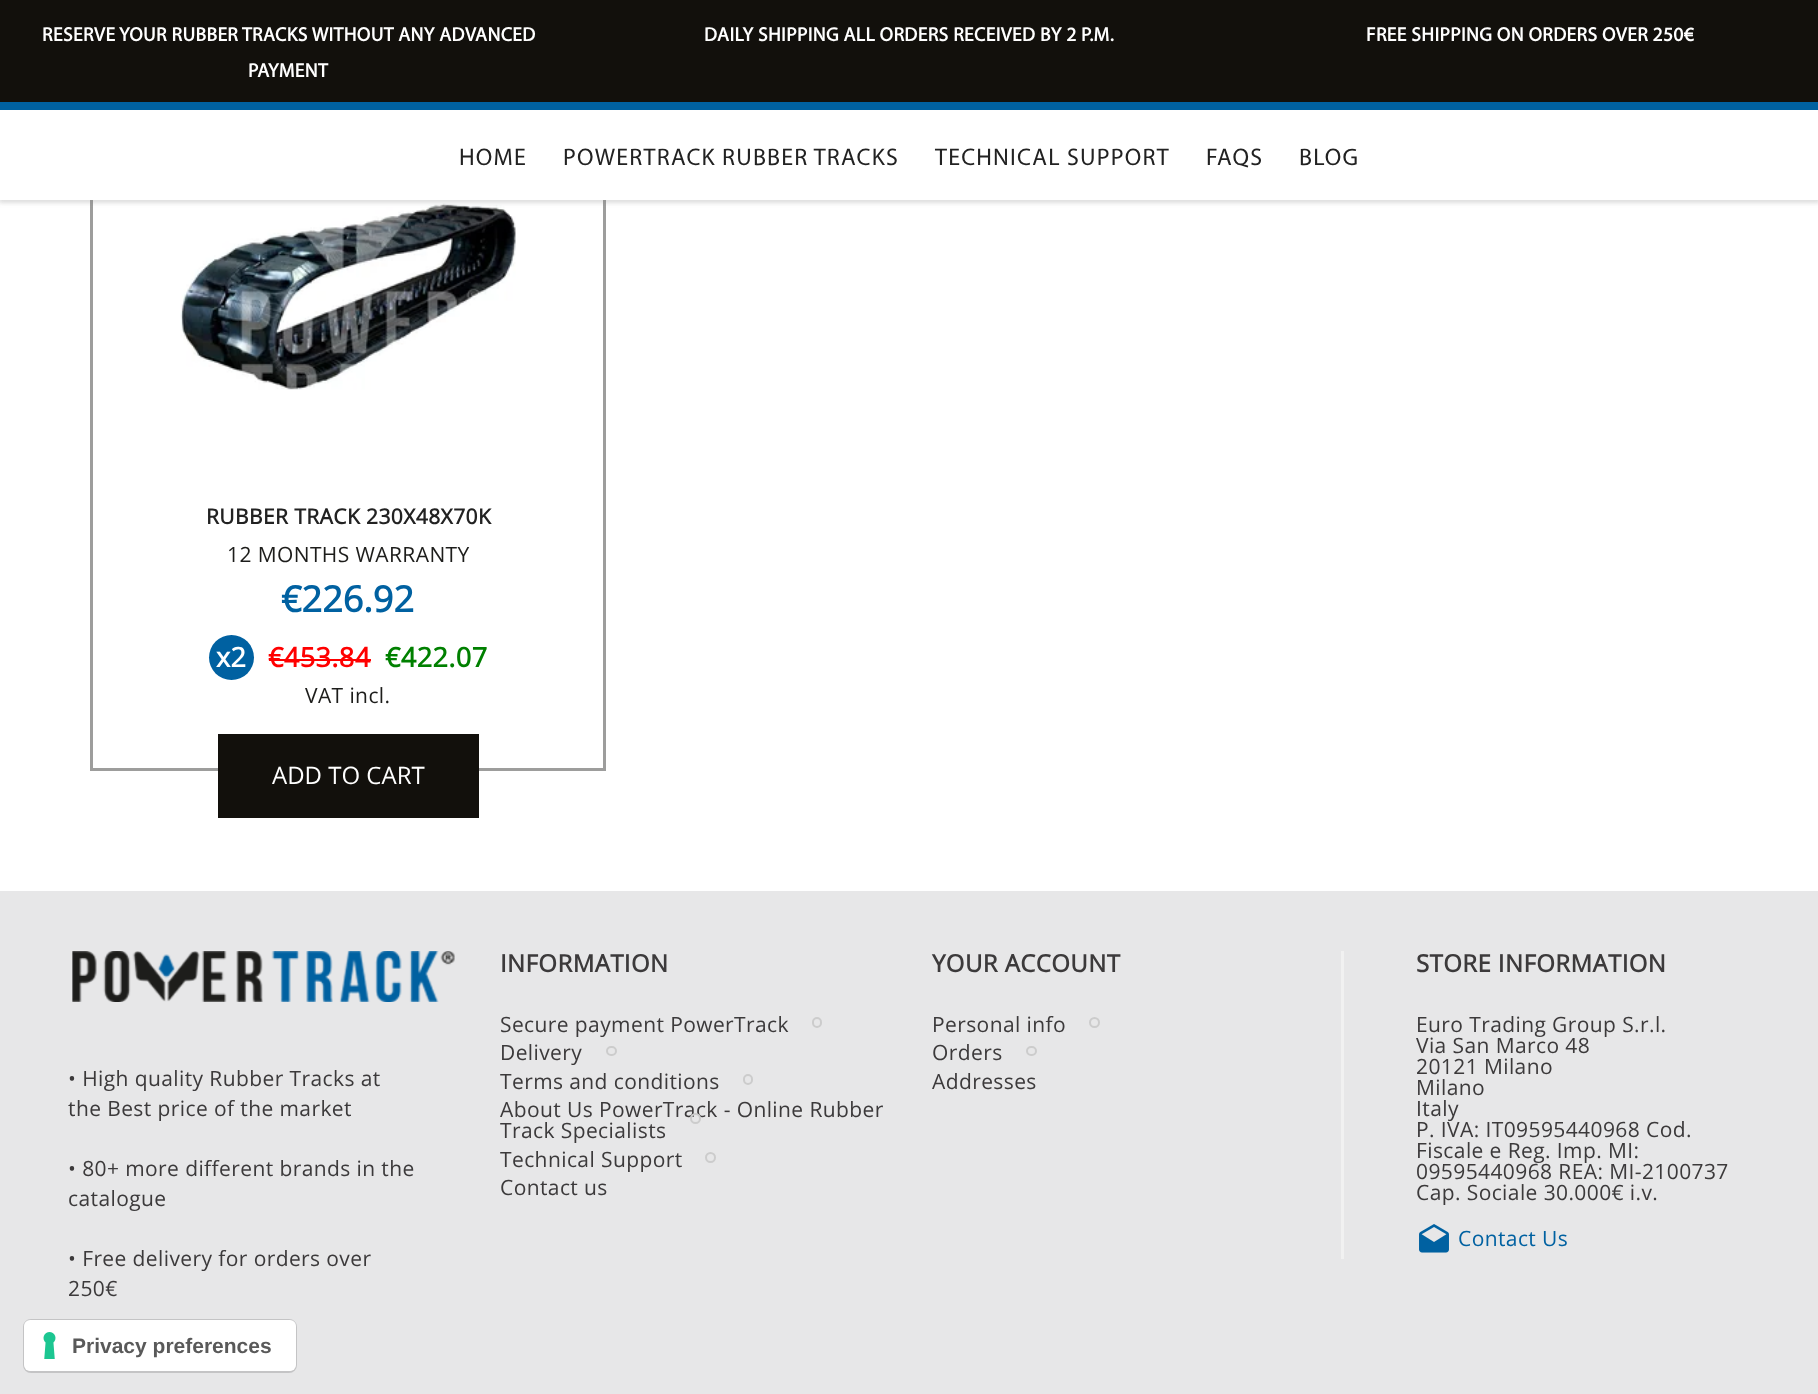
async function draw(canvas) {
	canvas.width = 1818;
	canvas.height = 1394;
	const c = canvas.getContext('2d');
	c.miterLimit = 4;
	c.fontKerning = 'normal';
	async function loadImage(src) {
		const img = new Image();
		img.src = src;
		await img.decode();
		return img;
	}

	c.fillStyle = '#fff';
	c.fillRect(0, 0, 1818, 1394);
	c.strokeStyle = '#9d9d9c';
	c.lineWidth = 3;
	c.strokeRect(91.5, 46.5, 513, 723);
	c.drawImage(await loadImage('img1.png'), 180, 203, 336, 187);
	c.fillStyle = '#80808045';
	c.filter = 'blur(2px)';
	c.beginPath();
	c.rect(-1, 0, 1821, 203);
	c.fill();
	c.filter = 'none';
	for (const [x, y, w, h, color] of [
		[0, 110, 1818, 90, '#fff'],
		[0, 0, 1818, 102, '#12100c'],
		[0, 102, 1818, 8, '#0061a1'],
	]) {
		c.fillStyle = color;
		c.fillRect(x, y, w, h);
	}
	c.letterSpacing = '0.4px';
	c.font = 'bold 19.5px Myriad';
	c.fillStyle = '#fff';
	for (const [text, x, y] of [
		['RESERVE YOUR RUBBER TRACKS WITHOUT ANY ADVANCED', 42, 41],
		['PAYMENT', 248, 77],
		['DAILY SHIPPING ALL ORDERS RECEIVED BY 2 P.M.', 704, 41],
		['FREE SHIPPING ON ORDERS OVER 250€', 1366, 41],
	]) {
		c.fillText(text, x, y);
	}
	c.letterSpacing = '1.2px';
	c.font = '24px Myriad';
	c.fillStyle = '#222';
	for (const [text, x, y] of [
		['HOME', 459, 165],
		['POWERTRACK RUBBER TRACKS', 563, 165],
		['TECHNICAL SUPPORT', 935, 165],
		['FAQS', 1206, 165],
		['BLOG', 1299, 165],
	]) {
		c.fillText(text, x, y);
	}
	c.letterSpacing = '0.4px';
	c.font = 'bold 21px Open Sans';
	c.fillText('RUBBER TRACK 230X48X70K', 206, 524);
	c.font = '21px Open Sans';
	c.fillStyle = '#1d1d1b';
	c.fillText('12 MONTHS WARRANTY', 227, 562);
	c.letterSpacing = '0px';
	c.font = 'bold 36px Open Sans';
	c.fillStyle = '#0061a1';
	c.fillText('€226.92', 281, 612);
	c.beginPath();
	c.arc(231.5, 657.5, 22.5, 0, 2 * Math.PI);
	c.fill();
	c.letterSpacing = '0.4px';
	c.font = 'bold 27px Open Sans';
	c.fillStyle = '#fff';
	c.fillText('x2', 216, 667);
	c.fillStyle = '#f00';
	c.fillText('€453.84', 268, 667);
	c.fillRect(269, 659, 102, 2);
	c.fillStyle = '#008000';
	c.fillText('€422.07', 385, 667);
	c.font = '21px Open Sans';
	c.fillStyle = '#1d1d1b';
	c.fillText('VAT incl.', 305, 703);
	c.fillStyle = '#12100c';
	c.fillRect(218, 734, 261, 84);
	c.letterSpacing = '0px';
	c.font = '24px Open Sans';
	c.fillStyle = '#fff';
	c.fillText('ADD TO CART', 272, 784);
	c.fillStyle = '#e7e7e8';
	c.fillRect(0, 891, 1818, 503);
	c.drawImage(await loadImage('img2.png'), 72, 951, 383, 51);
	c.letterSpacing = '0.4px';
	c.font = '21px Open Sans';
	c.fillStyle = '#3c3a3b';
	for (const [text, x, y] of [
		['• High quality Rubber Tracks at', 68, 1086],
		['the Best price of the market', 68, 1116],
		['• 80+ more different brands in the', 68, 1176],
		['catalogue', 68, 1206],
		['• Free delivery for orders over', 68, 1266],
		['250€', 68, 1296],
	]) {
		c.fillText(text, x, y);
	}
	c.font = 'bold 24px Open Sans';
	c.fillText('INFORMATION', 500, 972);
	c.font = '21px Open Sans';
	c.fillText('Secure payment PowerTrack', 500, 1032);
	c.beginPath();
	c.roundRect(813, 1018, 8, 9, 4);
	c.strokeStyle = '#ccc';
	c.lineWidth = 2;
	c.stroke();
	c.fillText('Delivery', 500, 1060);
	c.beginPath();
	c.roundRect(607, 1047, 9, 8, 4);
	c.stroke();
	c.fillText('Terms and conditions', 500, 1089);
	c.beginPath();
	c.roundRect(744, 1075, 8, 9, 4);
	c.stroke();
	c.fillText('About Us PowerTrack - Online Rubber', 500, 1117);
	c.beginPath();
	c.arc(695.5, 1118.5, 4.5, 0, 2 * Math.PI);
	c.stroke();
	c.fillText('Track Specialists', 500, 1138);
	c.fillText('Technical Support', 500, 1167);
	c.beginPath();
	c.arc(710.5, 1157.5, 4.5, 0, 2 * Math.PI);
	c.stroke();
	c.fillText('Contact us', 500, 1195);
	c.font = 'bold 24px Open Sans';
	c.fillText('YOUR ACCOUNT', 932, 972);
	c.font = '21px Open Sans';
	c.fillText('Personal info', 932, 1032);
	c.beginPath();
	c.arc(1094.5, 1022.5, 4.5, 0, 2 * Math.PI);
	c.stroke();
	c.fillText('Orders', 932, 1060);
	c.beginPath();
	c.roundRect(1027, 1047, 9, 8, 4);
	c.stroke();
	c.fillText('Addresses', 932, 1089);
	c.fillStyle = '#f1f1f1';
	c.fillRect(1341, 951, 3, 308);
	c.font = 'bold 24px Open Sans';
	c.fillStyle = '#3c3a3b';
	c.fillText('STORE INFORMATION', 1416, 972);
	c.font = '21px Open Sans';
	for (const [text, x, y] of [
		['Euro Trading Group S.r.l.', 1416, 1032],
		['Via San Marco 48', 1416, 1053],
		['20121 Milano', 1416, 1074],
		['Milano', 1416, 1095],
		['Italy', 1416, 1116],
		['P. IVA: IT09595440968 Cod.', 1416, 1137],
		['Fiscale e Reg. Imp. MI:', 1416, 1158],
		['09595440968 REA: MI-2100737', 1416, 1179],
		['Cap. Sociale 30.000€ i.v.', 1416, 1200],
	]) {
		c.fillText(text, x, y);
	}
	c.drawImage(await loadImage('img3.png'), 1419, 1224, 30, 29);
	c.fillStyle = '#0061a1';
	c.fillText('Contact Us', 1458, 1246);
	c.beginPath();
	c.roundRect(24, 1320, 272, 52, 7);
	c.strokeStyle = '#c4c4c5';
	c.stroke();
	c.fillStyle = '#fff';
	c.beginPath();
	c.roundRect(24, 1320, 272, 51, 6);
	c.fill();
	c.drawImage(await loadImage('img4.png'), 43, 1332, 13, 27);
	c.letterSpacing = '0px';
	c.font = 'bold 21px Liberation Sans';
	c.fillStyle = '#595959';
	c.fillText('Privacy preferences', 72, 1353);
}

draw(document.querySelector('canvas'));
